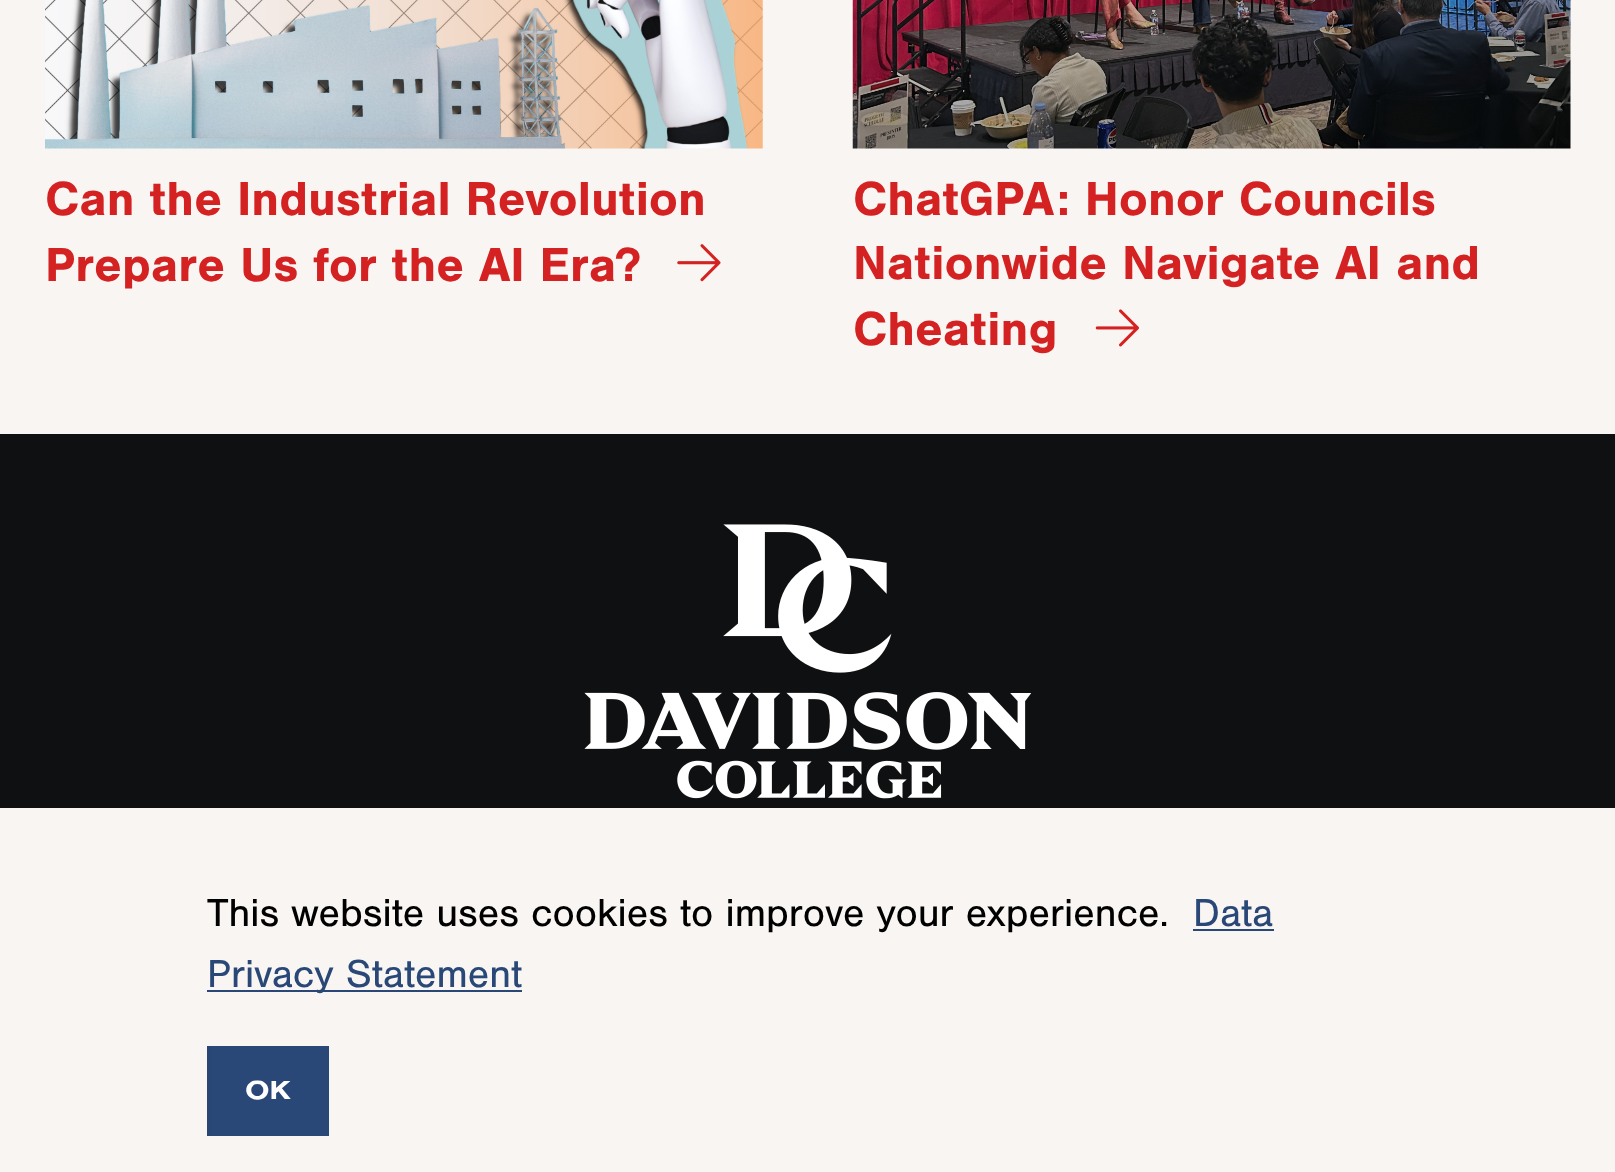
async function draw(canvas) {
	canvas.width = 1615;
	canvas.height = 1172;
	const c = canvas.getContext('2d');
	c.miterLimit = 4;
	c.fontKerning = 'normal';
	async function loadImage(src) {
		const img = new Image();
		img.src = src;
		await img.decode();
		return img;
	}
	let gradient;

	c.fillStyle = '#f9f5f2';
	c.fillRect(0, 0, 1615, 1172);
	c.drawImage(await loadImage('img1.png'), 45, 0, 718, 149);
	c.font = 'bold 49.5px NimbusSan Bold';
	c.fillStyle = '#d42121';
	c.fillText('Can the Industrial Revolution', 45, 215);
	c.fillText('Prepare Us for the AI Era?', 45, 281);
	c.drawImage(await loadImage('img2.png'), 677, 244, 44, 38);
	c.drawImage(await loadImage('img3.png'), 852, 0, 719, 149);
	for (const [text, x, y] of [
		['ChatGPA: Honor Councils', 853, 215],
		['Nationwide Navigate AI and', 853, 279],
		['Cheating', 853, 345],
	]) {
		c.fillText(text, x, y);
	}
	c.drawImage(await loadImage('img4.png'), 1095, 309, 44, 38);
	c.fillStyle = '#0f1012';
	c.fillRect(0, 434, 1615, 374);
	c.drawImage(await loadImage('img5.png'), 584, 524, 447, 275);
	c.font = '40.5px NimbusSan';
	c.fillStyle = '#000';
	c.fillText('This website uses cookies to improve your experience.', 207, 926);
	c.fillStyle = '#294878';
	c.fillText('Data', 1193, 926);
	c.fillRect(1193, 929, 81, 2);
	c.fillRect(207, 990, 315, 2);
	c.fillText('Privacy Statement', 207, 987);
	gradient = c.createLinearGradient(-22, 1091, 329, 1091);
	gradient.addColorStop(0, '#0f1012');
	gradient.addColorStop(0.33, '#0f1012');
	gradient.addColorStop(0.67, '#294878');
	gradient.addColorStop(1, '#294878');
	c.fillStyle = gradient;
	c.fillRect(207, 1046, 122, 90);
	c.font = 'bold 27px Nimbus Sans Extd';
	c.fillStyle = '#fff';
	c.fillText('OK', 245, 1099);
}

draw(document.querySelector('canvas'));
